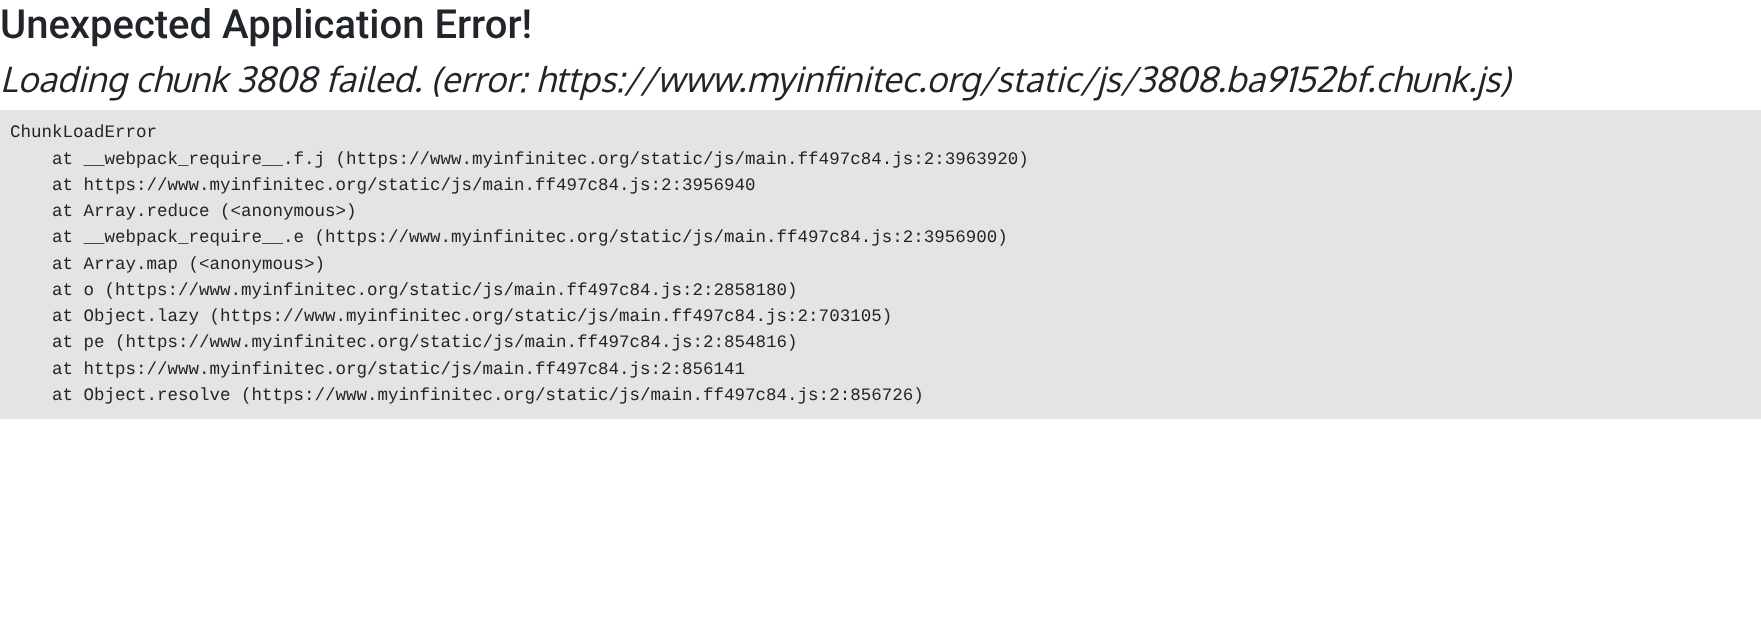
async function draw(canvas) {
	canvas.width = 1761;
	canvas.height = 625;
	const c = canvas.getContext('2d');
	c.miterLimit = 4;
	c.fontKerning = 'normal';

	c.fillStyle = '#fff';
	c.fillRect(0, 0, 1761, 625);
	c.font = '500 40px Roboto';
	c.fillStyle = '#212529';
	c.fillText('Unexpected Application Error!', 0, 38);
	c.font = 'italic 35px Oxygen';
	c.fillText('Loading chunk 3808 failed. (error: https://www.myinfinitec.org/static/js/3808.ba9152bf.chunk.js)', 0, 92);
	c.fillStyle = '#e4e4e4';
	c.fillRect(0, 110, 1761, 309);
	c.font = '17.5px Liberation Mono';
	c.fillStyle = '#212529';
	for (const [text, x, y] of [
		['ChunkLoadError', 10, 137],
		['at __webpack_require__.f.j (https://www.myinfinitec.org/static/js/main.ff497c84.js:2:3963920)', 52, 164],
		['at https://www.myinfinitec.org/static/js/main.ff497c84.js:2:3956940', 52, 190],
		['at Array.reduce (<anonymous>)', 52, 216],
		['at __webpack_require__.e (https://www.myinfinitec.org/static/js/main.ff497c84.js:2:3956900)', 52, 242],
		['at Array.map (<anonymous>)', 52, 269],
		['at o (https://www.myinfinitec.org/static/js/main.ff497c84.js:2:2858180)', 52, 295],
		['at Object.lazy (https://www.myinfinitec.org/static/js/main.ff497c84.js:2:703105)', 52, 321],
		['at pe (https://www.myinfinitec.org/static/js/main.ff497c84.js:2:854816)', 52, 347],
		['at https://www.myinfinitec.org/static/js/main.ff497c84.js:2:856141', 52, 374],
		['at Object.resolve (https://www.myinfinitec.org/static/js/main.ff497c84.js:2:856726)', 52, 400],
	]) {
		c.fillText(text, x, y);
	}
}

draw(document.querySelector('canvas'));
